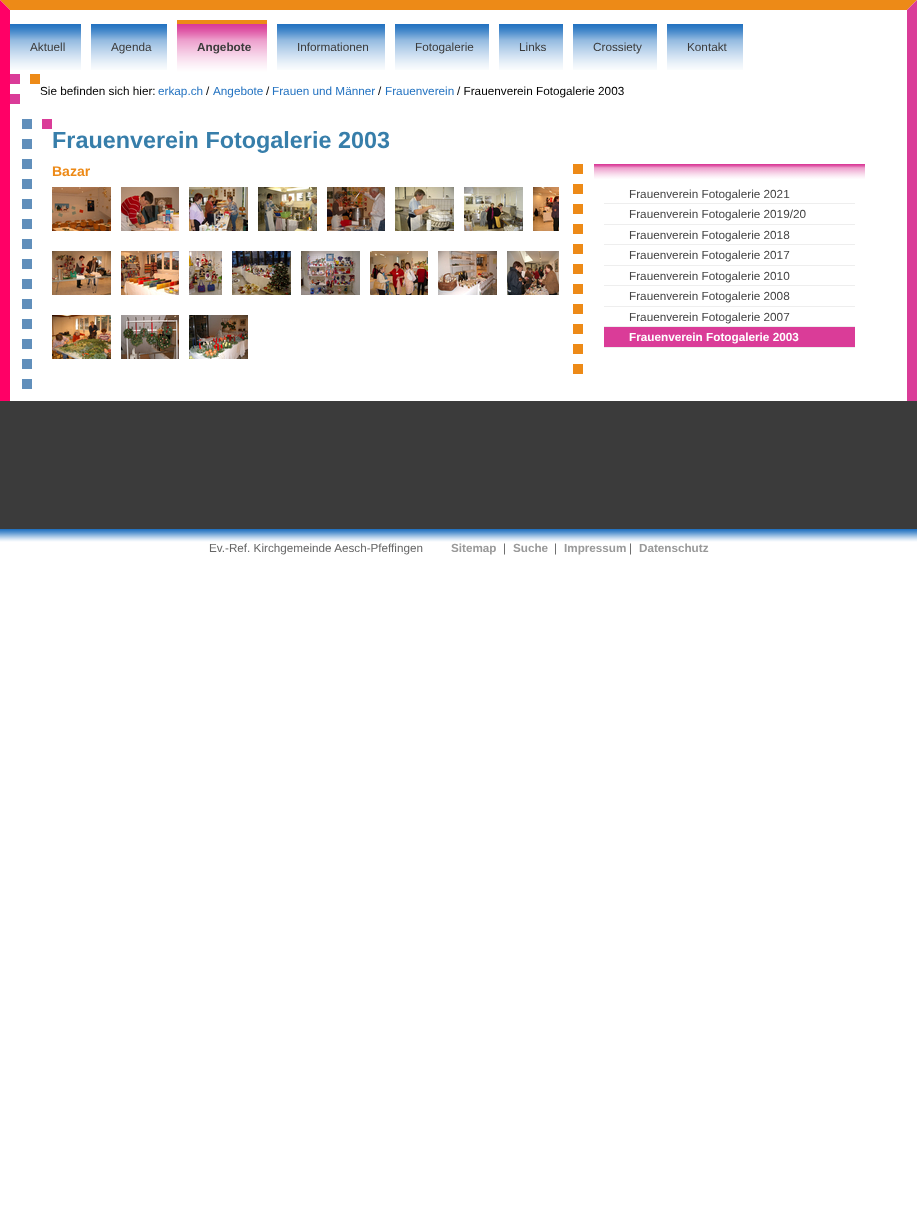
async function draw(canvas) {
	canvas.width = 917;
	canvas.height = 1217;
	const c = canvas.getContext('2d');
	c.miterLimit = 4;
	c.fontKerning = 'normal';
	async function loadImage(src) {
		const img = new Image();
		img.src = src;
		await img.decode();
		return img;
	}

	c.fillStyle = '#fff';
	c.fillRect(0, 0, 917, 1217);
	c.fillStyle = '#ed8a17';
	c.beginPath();
	c.moveTo(0, 0);
	c.lineTo(917, 0);
	c.lineTo(907, 10);
	c.lineTo(10, 10);
	c.closePath();
	c.fill();
	c.fillStyle = '#da3c98';
	c.beginPath();
	c.moveTo(917, 0);
	c.lineTo(917, 74);
	c.lineTo(907, 74);
	c.lineTo(907, 10);
	c.closePath();
	c.fill();
	c.fillStyle = '#f06';
	c.beginPath();
	c.moveTo(0, 74);
	c.lineTo(0, 0);
	c.lineTo(10, 10);
	c.lineTo(10, 74);
	c.closePath();
	c.fill();
	c.drawImage(await loadImage('img1.png'), 10, 24, 71, 46);
	c.font = '11.75px Liberation Sans';
	c.fillStyle = '#3b3b3b';
	c.fillText('Aktuell', 30, 51);
	c.drawImage(await loadImage('img2.png'), 91, 24, 76, 46);
	c.fillText('Agenda', 111, 51);
	c.fillStyle = '#ed8a17';
	c.fillRect(177, 20, 90, 4);
	c.drawImage(await loadImage('img3.png'), 177, 24, 90, 50);
	c.font = 'bold 11.75px Liberation Sans';
	c.fillStyle = '#3b3b3b';
	c.fillText('Angebote', 197, 51);
	c.drawImage(await loadImage('img4.png'), 277, 24, 108, 46);
	c.font = '11.75px Liberation Sans';
	c.fillText('Informationen', 297, 51);
	c.drawImage(await loadImage('img5.png'), 395, 24, 94, 46);
	c.fillText('Fotogalerie', 415, 51);
	c.drawImage(await loadImage('img6.png'), 499, 24, 64, 46);
	c.fillText('Links', 519, 51);
	c.drawImage(await loadImage('img7.png'), 573, 24, 84, 46);
	c.fillText('Crossiety', 593, 51);
	c.drawImage(await loadImage('img2.png'), 667, 24, 76, 46);
	c.fillText('Kontakt', 687, 51);
	c.fillStyle = '#da3c98';
	c.fillRect(907, 74, 10, 327);
	c.fillStyle = '#f06';
	c.fillRect(0, 74, 10, 327);
	c.drawImage(await loadImage('img8.png'), 10, 74, 10, 30);
	c.fillStyle = '#ed8a17';
	c.fillRect(30, 74, 10, 10);
	c.fillStyle = '#000';
	c.fillText('Sie befinden sich hier:', 40, 95);
	c.fillStyle = '#2473c1';
	c.fillText('erkap.ch', 158, 95);
	c.fillStyle = '#000';
	c.fillText('/', 206, 95);
	c.fillStyle = '#2473c1';
	c.fillText('Angebote', 213, 95);
	c.fillStyle = '#000';
	c.fillText('/', 266, 95);
	c.fillStyle = '#2473c1';
	c.fillText('Frauen und Männer', 272, 95);
	c.fillStyle = '#000';
	c.fillText('/', 378, 95);
	c.fillStyle = '#2473c1';
	c.fillText('Frauenverein', 385, 95);
	c.fillStyle = '#000';
	c.fillText('/ Frauenverein Fotogalerie 2003', 457, 95);
	c.drawImage(await loadImage('img9.png'), 22, 119, 10, 270);
	c.fillStyle = '#da3c98';
	c.fillRect(42, 119, 10, 10);
	c.font = 'bold 23.4px Liberation Sans';
	c.fillStyle = '#377eaa';
	c.fillText('Frauenverein Fotogalerie 2003', 52, 148);
	c.drawImage(await loadImage('img10.png'), 573, 164, 10, 210);
	c.font = 'bold 14px Liberation Sans';
	c.fillStyle = '#ed8a17';
	c.fillText('Bazar', 52, 176);
	c.drawImage(await loadImage('img11.png'), 52, 187, 59, 44);
	c.drawImage(await loadImage('img12.png'), 121, 187, 58, 44);
	c.drawImage(await loadImage('img13.png'), 189, 187, 59, 44);
	c.drawImage(await loadImage('img14.png'), 258, 187, 59, 44);
	c.drawImage(await loadImage('img15.png'), 327, 187, 58, 44);
	c.drawImage(await loadImage('img16.png'), 395, 187, 59, 44);
	c.drawImage(await loadImage('img17.png'), 464, 187, 59, 44);
	c.drawImage(await loadImage('img18.png'), 533, 187, 26, 44);
	c.drawImage(await loadImage('img19.png'), 52, 251, 59, 44);
	c.drawImage(await loadImage('img20.png'), 121, 251, 58, 44);
	c.drawImage(await loadImage('img21.png'), 189, 251, 33, 44);
	c.drawImage(await loadImage('img22.png'), 232, 251, 59, 44);
	c.drawImage(await loadImage('img23.png'), 301, 251, 59, 44);
	c.drawImage(await loadImage('img24.png'), 370, 251, 58, 44);
	c.drawImage(await loadImage('img25.png'), 438, 251, 59, 44);
	c.drawImage(await loadImage('img26.png'), 507, 251, 52, 44);
	c.drawImage(await loadImage('img27.png'), 52, 315, 59, 44);
	c.drawImage(await loadImage('img28.png'), 121, 315, 58, 44);
	c.drawImage(await loadImage('img29.png'), 189, 315, 59, 44);
	c.drawImage(await loadImage('img30.png'), 594, 164, 271, 15);
	c.fillStyle = '#eee';
	c.fillRect(604, 203, 251, 1);
	c.font = '11.75px Liberation Sans';
	c.fillStyle = '#444';
	c.fillText('Frauenverein Fotogalerie 2021', 629, 198);
	c.fillStyle = '#eee';
	c.fillRect(604, 224, 251, 1);
	c.fillStyle = '#444';
	c.fillText('Frauenverein Fotogalerie 2019/20', 629, 218);
	c.fillStyle = '#eee';
	c.fillRect(604, 244, 251, 1);
	c.fillStyle = '#444';
	c.fillText('Frauenverein Fotogalerie 2018', 629, 239);
	c.fillStyle = '#eee';
	c.fillRect(604, 265, 251, 1);
	c.fillStyle = '#444';
	c.fillText('Frauenverein Fotogalerie 2017', 629, 259);
	c.fillStyle = '#eee';
	c.fillRect(604, 285, 251, 1);
	c.fillStyle = '#444';
	c.fillText('Frauenverein Fotogalerie 2010', 629, 280);
	c.fillStyle = '#eee';
	c.fillRect(604, 306, 251, 1);
	c.fillStyle = '#444';
	c.fillText('Frauenverein Fotogalerie 2008', 629, 300);
	c.fillStyle = '#eee';
	c.fillRect(604, 326, 251, 1);
	c.fillStyle = '#444';
	c.fillText('Frauenverein Fotogalerie 2007', 629, 321);
	c.fillStyle = '#da3c98';
	c.fillRect(604, 327, 251, 20);
	c.fillStyle = '#eee';
	c.fillRect(604, 347, 251, 1);
	c.font = 'bold 11.75px Liberation Sans';
	c.fillStyle = '#fff';
	c.fillText('Frauenverein Fotogalerie 2003', 629, 341);
	c.fillStyle = '#3b3b3b';
	c.fillRect(0, 401, 917, 128);
	c.drawImage(await loadImage('img31.png'), 0, 529, 917, 13);
	c.font = '11.7px Liberation Sans';
	c.fillStyle = '#666';
	c.fillText('Ev.-Ref. Kirchgemeinde Aesch-Pfeffingen', 209, 552);
	c.font = 'bold 11.7px Liberation Sans';
	c.fillStyle = '#999';
	c.fillText('Sitemap', 451, 552);
	c.font = '11.7px Liberation Sans';
	c.fillStyle = '#666';
	c.fillText('|', 503, 552);
	c.font = 'bold 11.7px Liberation Sans';
	c.fillStyle = '#999';
	c.fillText('Suche', 513, 552);
	c.font = '11.7px Liberation Sans';
	c.fillStyle = '#666';
	c.fillText('|', 554, 552);
	c.font = 'bold 11.7px Liberation Sans';
	c.fillStyle = '#999';
	c.fillText('Impressum', 564, 552);
	c.font = '11.7px Liberation Sans';
	c.fillStyle = '#666';
	c.fillText('|', 629, 552);
	c.font = 'bold 11.7px Liberation Sans';
	c.fillStyle = '#999';
	c.fillText('Datenschutz', 639, 552);
}

draw(document.querySelector('canvas'));
